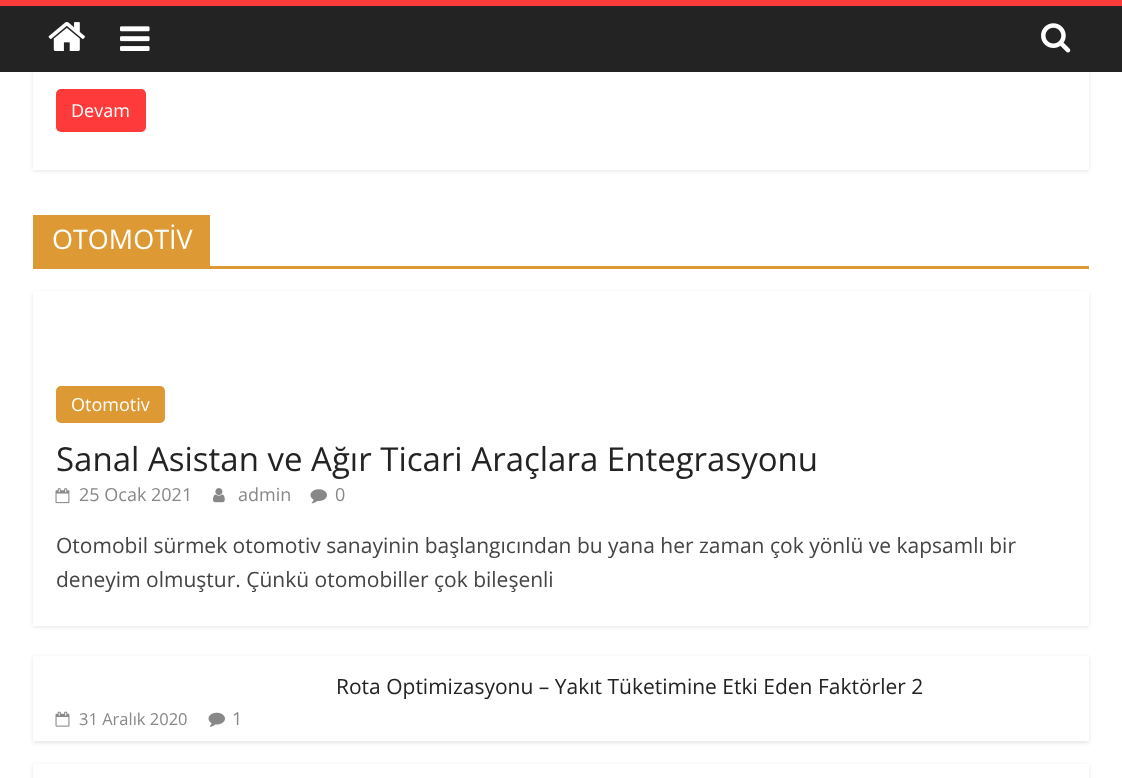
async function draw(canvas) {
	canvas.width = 1122;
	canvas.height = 778;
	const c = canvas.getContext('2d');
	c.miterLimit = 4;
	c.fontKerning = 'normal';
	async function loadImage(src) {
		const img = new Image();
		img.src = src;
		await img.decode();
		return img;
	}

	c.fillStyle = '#fff';
	c.fillRect(0, 0, 1122, 778);
	c.save();
	c.beginPath();
	c.moveTo(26, 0);
	c.lineTo(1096, 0);
	c.lineTo(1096, 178);
	c.lineTo(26, 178);
	c.closePath();
	c.moveTo(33, -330);
	c.lineTo(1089, -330);
	c.lineTo(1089, 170);
	c.lineTo(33, 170);
	c.closePath();
	c.clip('evenodd');
	c.fillStyle = '#0000001a';
	c.filter = 'blur(2px)';
	c.beginPath();
	c.rect(33, -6, 1056, 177);
	c.fill();
	c.filter = 'none';
	c.restore();
	c.fillStyle = '#232323';
	c.fillRect(0, 6, 1122, 66);
	c.fillStyle = '#ff3a3a';
	c.fillRect(0, 0, 1122, 6);
	c.drawImage(await loadImage('img1.png'), 48, 22, 37, 29);
	c.drawImage(await loadImage('img2.png'), 120, 26, 30, 25);
	c.drawImage(await loadImage('img3.png'), 1041, 23, 30, 30);
	c.beginPath();
	c.roundRect(56, 89, 90, 43, 5);
	c.fill();
	c.font = '18px Open Sans';
	c.fillStyle = '#fff';
	c.fillText('Devam', 71, 117);
	c.fillStyle = '#d93';
	c.fillRect(33, 266, 1056, 3);
	c.fillRect(33, 215, 177, 51);
	c.font = '27px Open Sans';
	c.fillStyle = '#fff';
	c.fillText('OTOMOTİV', 52, 249);
	c.fillStyle = '#0000001a';
	c.filter = 'blur(2px)';
	c.beginPath();
	c.rect(33, 293, 1056, 334);
	c.fill();
	c.filter = 'none';
	c.fillStyle = '#fff';
	c.fillRect(33, 291, 1056, 335);
	c.fillStyle = '#d93';
	c.beginPath();
	c.roundRect(56, 386, 109, 37, 5);
	c.fill();
	c.font = '18px Open Sans';
	c.fillStyle = '#fff';
	c.fillText('Otomotiv', 71, 411);
	c.font = '33px Open Sans';
	c.fillStyle = '#232323';
	c.fillText('Sanal Asistan ve Ağır Ticari Araçlara Entegrasyonu', 56, 471);
	c.drawImage(await loadImage('img4.png'), 55, 488, 15, 16);
	c.font = '18px Open Sans';
	c.fillStyle = '#888';
	c.fillText('25 Ocak 2021', 79, 501);
	c.drawImage(await loadImage('img5.png'), 213, 488, 12, 15);
	c.fillText('admin', 238, 501);
	c.drawImage(await loadImage('img6.png'), 310, 489, 17, 15);
	c.fillText('0', 335, 501);
	c.font = '21px Open Sans';
	c.fillStyle = '#444';
	c.fillText('Otomobil sürmek otomotiv sanayinin başlangıcından bu yana her zaman çok yönlü ve kapsamlı bir', 56, 553);
	c.fillText('deneyim olmuştur. Çünkü otomobiller çok bileşenli', 56, 587);
	c.save();
	c.beginPath();
	c.moveTo(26, 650);
	c.lineTo(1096, 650);
	c.lineTo(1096, 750);
	c.lineTo(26, 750);
	c.closePath();
	c.moveTo(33, 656);
	c.lineTo(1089, 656);
	c.lineTo(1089, 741);
	c.lineTo(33, 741);
	c.closePath();
	c.clip('evenodd');
	c.fillStyle = '#0000001a';
	c.filter = 'blur(2px)';
	c.beginPath();
	c.rect(33, 657, 1056, 86);
	c.fill();
	c.filter = 'none';
	c.restore();
	c.fillStyle = '#232323';
	c.fillText('Rota Optimizasyonu – Yakıt Tüketimine Etki Eden Faktörler 2', 336, 694);
	c.drawImage(await loadImage('img7.png'), 55, 711, 15, 16);
	c.font = '16.5px Open Sans';
	c.fillStyle = '#888';
	c.fillText('31 Aralık 2020', 79, 725);
	c.drawImage(await loadImage('img8.png'), 208, 712, 17, 15);
	c.font = '18px Open Sans';
	c.fillText('1', 232, 725);
	c.save();
	c.beginPath();
	c.moveTo(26, 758);
	c.lineTo(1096, 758);
	c.lineTo(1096, 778);
	c.lineTo(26, 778);
	c.closePath();
	c.moveTo(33, 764);
	c.lineTo(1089, 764);
	c.lineTo(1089, 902);
	c.lineTo(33, 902);
	c.closePath();
	c.clip('evenodd');
	c.fillStyle = '#0000001a';
	c.filter = 'blur(2px)';
	c.beginPath();
	c.rect(33, 765, 1056, 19);
	c.fill();
	c.filter = 'none';
	c.restore();
}

draw(document.querySelector('canvas'));
